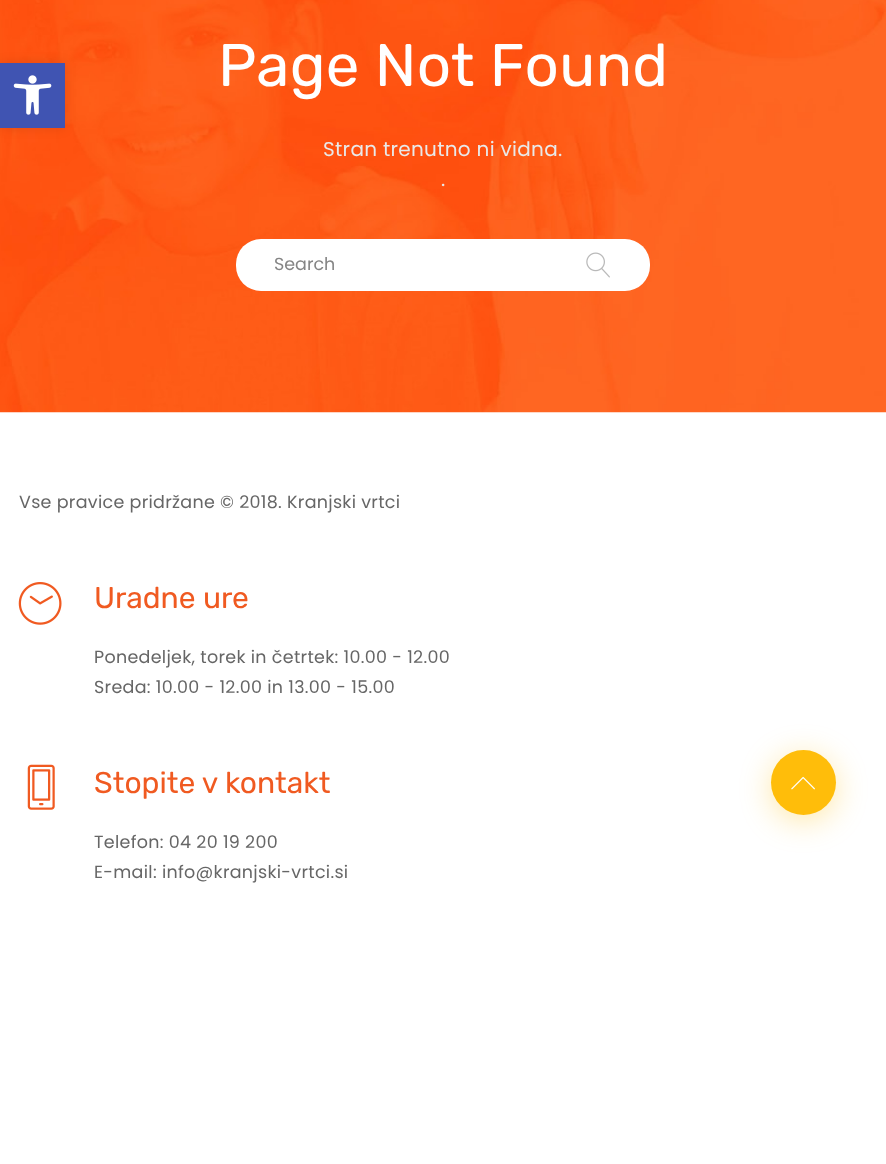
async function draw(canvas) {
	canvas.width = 886;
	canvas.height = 1164;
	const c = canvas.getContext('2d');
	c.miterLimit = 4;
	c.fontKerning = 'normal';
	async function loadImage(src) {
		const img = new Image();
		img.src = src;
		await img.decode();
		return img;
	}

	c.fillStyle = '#fff';
	c.fillRect(0, 0, 886, 1164);
	c.drawImage(await loadImage('img1.png'), 0, 0, 886, 413);
	c.letterSpacing = '0.3px';
	c.font = '60px Rubik';
	c.fillText('Page Not Found', 218, 86);
	c.font = '20px Poppins';
	c.fillStyle = '#e9e9e9';
	c.fillText('Stran trenutno ni vidna.', 323, 156);
	c.fillText('.', 441, 186);
	c.fillStyle = '#fff';
	c.beginPath();
	c.roundRect(236, 239, 414, 52, 25);
	c.fill();
	c.letterSpacing = '0px';
	c.font = '17.5px Poppins';
	c.fillStyle = '#858585';
	c.fillText('Search', 274, 270);
	c.drawImage(await loadImage('img2.png'), 586, 252, 24, 26);
	c.letterSpacing = '0.3px';
	c.fillStyle = '#666';
	c.fillText('Vse pravice pridržane © 2018. Kranjski vrtci', 19, 508);
	c.drawImage(await loadImage('img3.png'), 18, 582, 44, 43);
	c.letterSpacing = '0px';
	c.font = '30px Rubik';
	c.fillStyle = '#f05a21';
	c.fillText('Uradne ure', 94, 608);
	c.letterSpacing = '0.3px';
	c.font = '17.5px Poppins';
	c.fillStyle = '#666';
	c.fillText('Ponedeljek, torek in četrtek: 10.00 - 12.00', 94, 663);
	c.fillText('Sreda: 10.00 - 12.00 in 13.00 - 15.00', 94, 693);
	c.drawImage(await loadImage('img4.png'), 27, 764, 28, 46);
	c.letterSpacing = '0px';
	c.font = '30px Rubik';
	c.fillStyle = '#f05a21';
	c.fillText('Stopite v kontakt', 94, 793);
	c.letterSpacing = '0.3px';
	c.font = '17.5px Poppins';
	c.fillStyle = '#666';
	c.fillText('Telefon: 04 20 19 200', 94, 848);
	c.fillText('E-mail: info@kranjski-vrtci.si', 94, 878);
	c.fillStyle = '#0000001a';
	c.filter = 'blur(6px)';
	c.beginPath();
	c.rect(0, 63, 65, 65);
	c.fill();
	c.filter = 'none';
	c.fillStyle = '#4054b2';
	c.fillRect(0, 63, 65, 65);
	c.drawImage(await loadImage('img5.png'), 13, 75, 39, 40);
	c.fillStyle = '#ffbd0a59';
	c.filter = 'blur(15.5px)';
	c.beginPath();
	c.roundRect(771, 756, 65, 65, 32.5);
	c.fill();
	c.filter = 'none';
	c.fillStyle = '#ffbd0a';
	c.beginPath();
	c.arc(803.5, 782.5, 32.5, 0, 2 * Math.PI);
	c.fill();
	c.drawImage(await loadImage('img6.png'), 791, 776, 24, 14);
}

draw(document.querySelector('canvas'));
